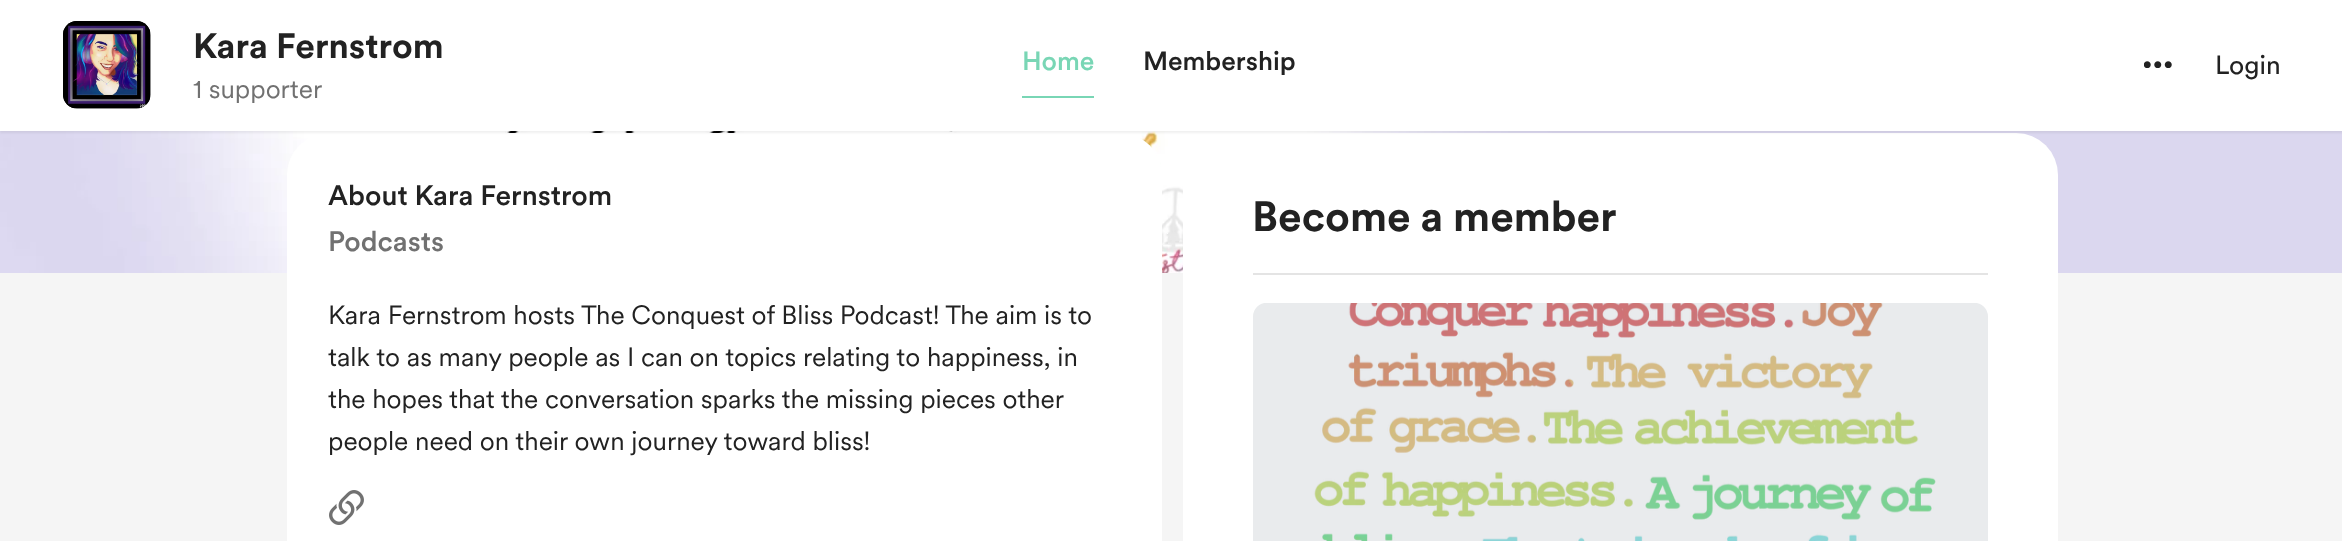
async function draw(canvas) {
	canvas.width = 2342;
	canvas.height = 541;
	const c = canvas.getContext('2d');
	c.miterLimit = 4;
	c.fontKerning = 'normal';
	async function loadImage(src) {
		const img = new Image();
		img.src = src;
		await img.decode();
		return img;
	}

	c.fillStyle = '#f5f5f5';
	c.fillRect(0, 0, 2342, 541);
	c.drawImage(await loadImage('img4.png'), 0, 131, 2342, 142);
	c.fillStyle = '#fff';
	c.beginPath();
	c.roundRect(287, 133, 875, 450, 42);
	c.fill();
	c.beginPath();
	c.roundRect(1183, 133, 875, 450, 42);
	c.fill();
	c.fillStyle = '#0000000f';
	c.filter = 'blur(1px)';
	c.beginPath();
	c.rect(0, 2, 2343, 131);
	c.fill();
	c.filter = 'none';
	c.fillStyle = '#fff';
	c.fillRect(0, 0, 2342, 131);
	c.drawImage(await loadImage('img1.png'), 63, 21, 88, 88);
	c.drawImage(await loadImage('img2.png'), 63, 21, 88, 88);
	c.font = 'bold 35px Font';
	c.fillStyle = '#222';
	c.fillText('Kara Fernstrom', 193, 58);
	c.font = '26.25px Font';
	c.fillStyle = '#717171';
	c.fillText('1 supporter', 193, 98);
	c.font = '500 26.25px Font';
	c.fillStyle = '#79d6b5';
	c.fillText('Home', 1022, 70);
	c.fillRect(1022, 96, 72, 2);
	c.fillStyle = '#222';
	c.fillText('Membership', 1143, 70);
	c.drawImage(await loadImage('img3.png'), 2144, 61, 28, 7);
	c.font = '26.25px "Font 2"';
	c.fillText('Login', 2215, 74);
	c.font = '500 28px Font';
	c.fillText('About Kara Fernstrom', 328, 205);
	c.fillStyle = '#717171';
	c.fillText('Podcasts', 328, 251);
	c.font = '26.25px Font';
	c.fillStyle = '#222';
	for (const [text, x, y] of [
		['Kara Fernstrom hosts The Conquest of Bliss Podcast! The aim is to', 328, 324],
		['talk to as many people as I can on topics relating to happiness, in', 328, 366],
		['the hopes that the conversation sparks the missing pieces other', 328, 408],
		['people need on their own journey toward bliss!', 328, 450],
	]) {
		c.fillText(text, x, y);
	}
	c.drawImage(await loadImage('img5.png'), 329, 490, 35, 35);
	c.font = 'bold 42px Font';
	c.fillText('Become a member', 1252, 231);
	c.fillStyle = '#e4e4e4';
	c.fillRect(1253, 273, 735, 2);
	c.drawImage(await loadImage('img6.png'), 1253, 303, 735, 238);
	c.drawImage(await loadImage('img7.png'), 1314, 303, 622, 238);
}

draw(document.querySelector('canvas'));
